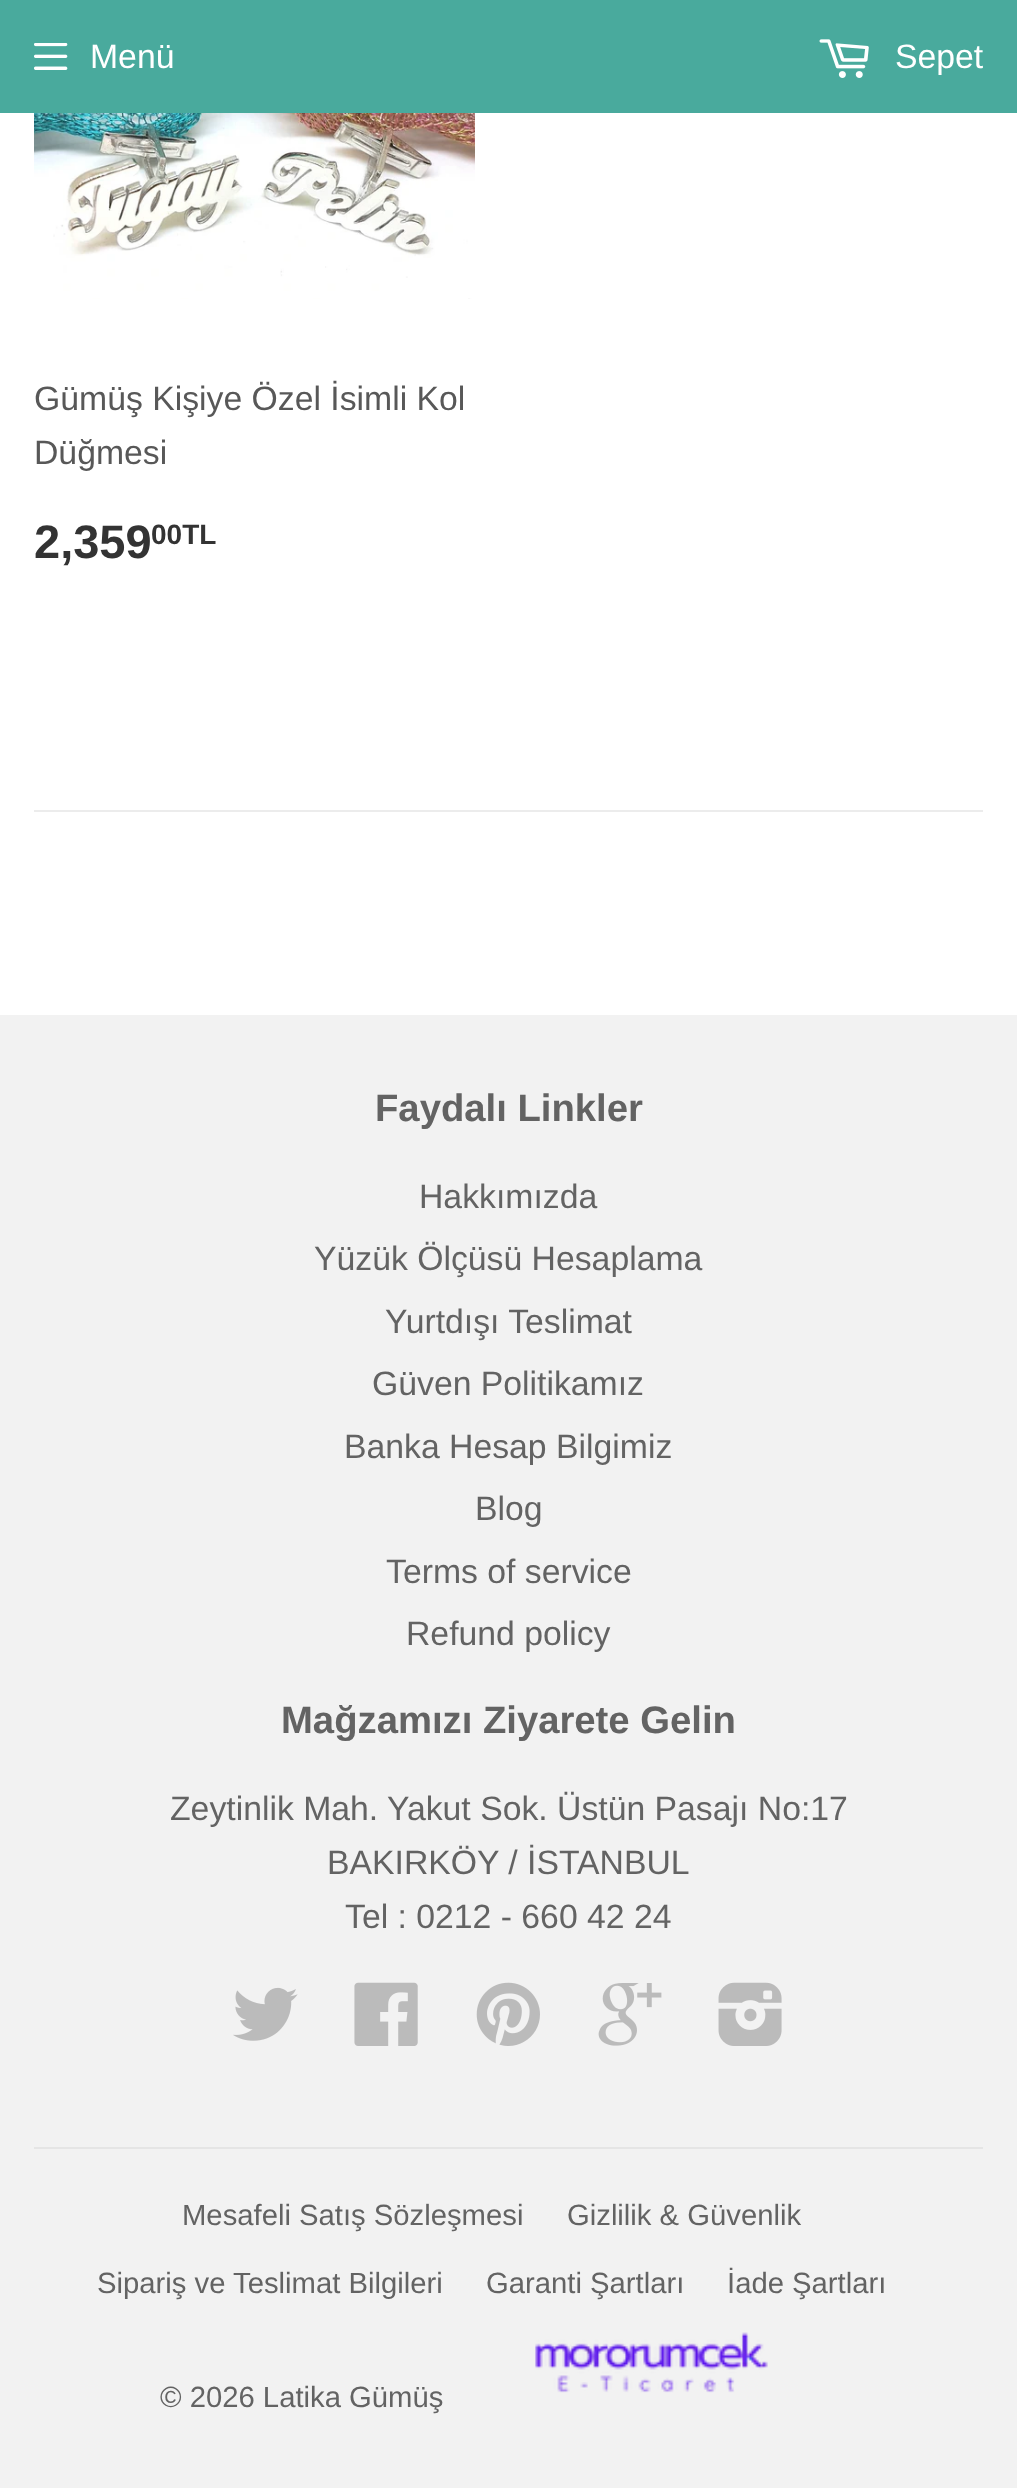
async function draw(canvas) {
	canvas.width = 1017;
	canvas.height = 2488;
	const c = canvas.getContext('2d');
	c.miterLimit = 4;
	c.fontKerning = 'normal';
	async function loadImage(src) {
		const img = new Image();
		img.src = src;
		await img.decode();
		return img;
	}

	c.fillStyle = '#fff';
	c.fillRect(0, 0, 1017, 2488);
	c.fillStyle = '#49aa9d';
	c.fillRect(0, 0, 1017, 113);
	c.drawImage(await loadImage('img1.png'), 34, 43, 34, 27);
	c.font = '33.75px Liberation Sans';
	c.fillStyle = '#fff';
	c.fillText('Menü', 90, 68);
	c.drawImage(await loadImage('img2.png'), 819, 39, 50, 39);
	c.fillText('Sepet', 895, 68);
	c.drawImage(await loadImage('img3.png'), 34, 113, 441, 186);
	c.fillStyle = '#585858';
	c.fillText('Gümüş Kişiye Özel İsimli Kol', 34, 410);
	c.fillText('Düğmesi', 34, 464);
	c.font = 'bold 47px Liberation Sans';
	c.fillStyle = '#333';
	c.fillText('2,359', 34, 558);
	c.font = 'bold 28px Liberation Sans';
	c.fillText('00TL', 151, 544);
	c.fillStyle = '#ececec';
	c.fillRect(34, 810, 949, 2);
	c.fillStyle = '#f2f2f2';
	c.fillRect(0, 1015, 1017, 1473);
	c.font = 'bold 38.25px Liberation Sans';
	c.fillStyle = '#636363';
	c.fillText('Faydalı Linkler', 375, 1121);
	c.font = '33.75px Liberation Sans';
	for (const [text, x, y] of [
		['Hakkımızda', 419, 1208],
		['Yüzük Ölçüsü Hesaplama', 314, 1270],
		['Yurtdışı Teslimat', 385, 1333],
		['Güven Politikamız', 372, 1395],
		['Banka Hesap Bilgimiz', 344, 1458],
		['Blog', 475, 1520],
		['Terms of service', 386, 1583],
		['Refund policy', 406, 1645],
	]) {
		c.fillText(text, x, y);
	}
	c.font = 'bold 38.25px Liberation Sans';
	c.fillText('Mağzamızı Ziyarete Gelin', 281, 1733);
	c.font = '33.75px Liberation Sans';
	for (const [text, x, y] of [
		['Zeytinlik Mah. Yakut Sok. Üstün Pasajı No:17', 170, 1820],
		['BAKIRKÖY / İSTANBUL', 327, 1874],
		['Tel : 0212 - 660 42 24', 345, 1928],
	]) {
		c.fillText(text, x, y);
	}
	c.drawImage(await loadImage('img4.png'), 233, 1987, 65, 54);
	c.drawImage(await loadImage('img5.png'), 354, 1982, 64, 64);
	c.drawImage(await loadImage('img6.png'), 476, 1982, 64, 64);
	c.drawImage(await loadImage('img7.png'), 598, 1983, 64, 63);
	c.drawImage(await loadImage('img8.png'), 718, 1982, 64, 64);
	c.fillStyle = '#e5e5e5';
	c.fillRect(34, 2147, 949, 2);
	c.font = '29.25px Liberation Sans';
	c.fillStyle = '#636363';
	for (const [text, x, y] of [
		['Mesafeli Satış Sözleşmesi', 182, 2225],
		['Gizlilik & Güvenlik', 567, 2225],
		['Sipariş ve Teslimat Bilgileri', 97, 2293],
		['Garanti Şartları', 486, 2293],
		['İade Şartları', 727, 2293],
	]) {
		c.fillText(text, x, y);
	}
	c.drawImage(await loadImage('img9.png'), 535, 2332, 233, 61);
	c.fillText('© 2026 Latika Gümüş', 160, 2407);
}

draw(document.querySelector('canvas'));
